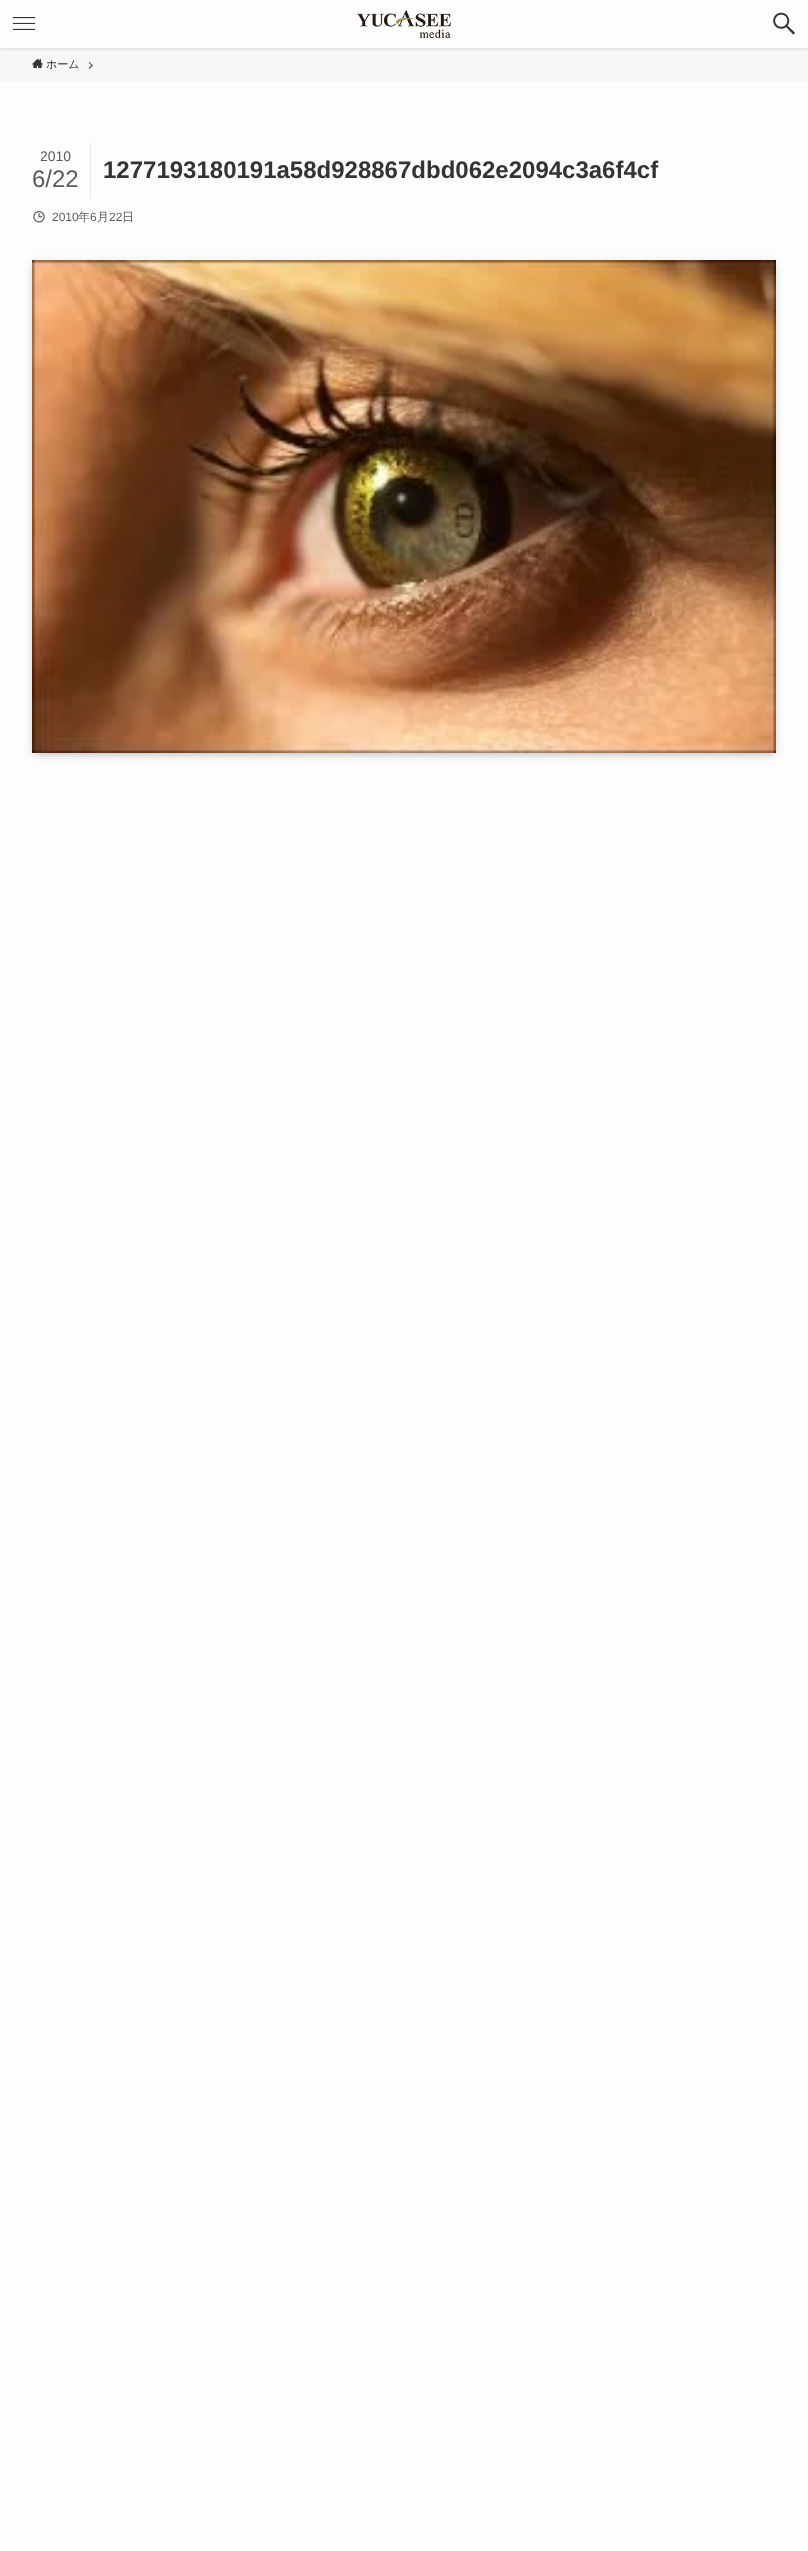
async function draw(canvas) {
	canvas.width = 808;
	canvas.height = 2551;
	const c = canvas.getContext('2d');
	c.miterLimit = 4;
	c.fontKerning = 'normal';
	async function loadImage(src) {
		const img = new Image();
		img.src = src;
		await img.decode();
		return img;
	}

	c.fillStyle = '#fdfdfd';
	c.fillRect(0, 0, 808, 2551);
	c.fillStyle = '#f7f7f7';
	c.fillRect(0, 48, 808, 34);
	c.save();
	c.beginPath();
	c.rect(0, 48, 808, 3);
	c.clip();
	c.fillStyle = '#0000001f';
	c.filter = 'blur(2px)';
	c.beginPath();
	c.rect(0, 1, 808, 48);
	c.fill();
	c.filter = 'none';
	c.restore();
	c.drawImage(await loadImage('img1.png'), 12, 17, 24, 13);
	c.drawImage(await loadImage('img2.png'), 357, 10, 94, 28);
	c.drawImage(await loadImage('img3.png'), 773, 12, 22, 23);
	c.drawImage(await loadImage('img4.png'), 32, 58, 11, 10);
	c.font = '500 11px WenQuanYi Zen Hei';
	c.fillStyle = '#333';
	c.fillText('ホーム', 46, 68);
	c.fillStyle = '#5a5a5a';
	c.beginPath();
	c.moveTo(89.5, 62);
	c.lineTo(93, 65.5);
	c.lineTo(92, 66);
	c.lineTo(88.5, 62.5);
	c.closePath();
	c.fill();
	c.beginPath();
	c.moveTo(92, 64.5);
	c.lineTo(93, 65.5);
	c.lineTo(89.5, 69);
	c.lineTo(88.5, 68);
	c.closePath();
	c.fill();
	c.fillStyle = '#e8e8e8';
	c.fillRect(90, 142, 1, 57);
	c.font = '14px Liberation Sans';
	c.fillStyle = '#5b5b5b';
	c.fillText('2010', 40, 161);
	c.font = '24px Liberation Sans';
	c.fillText('6/22', 32, 187);
	c.font = 'bold 24px Liberation Sans';
	c.fillStyle = '#333';
	c.fillText('1277193180191a58d928867dbd062e2094c3a6f4cf', 103, 178);
	c.drawImage(await loadImage('img5.png'), 33, 211, 12, 12);
	c.font = '12px Liberation Sans';
	c.fillStyle = '#5b5b5b';
	c.fillText('2010', 52, 221);
	c.font = '500 12px WenQuanYi Zen Hei';
	c.fillText('年', 78, 221);
	c.font = '12px Liberation Sans';
	c.fillText('6', 90, 221);
	c.font = '500 12px WenQuanYi Zen Hei';
	c.fillText('月', 97, 221);
	c.font = '12px Liberation Sans';
	c.fillText('22', 109, 221);
	c.font = '500 12px WenQuanYi Zen Hei';
	c.fillText('日', 122, 221);
	c.fillStyle = '#00000033';
	c.filter = 'blur(4px)';
	c.beginPath();
	c.rect(36, 268, 736, 485);
	c.fill();
	c.filter = 'none';
	c.fillStyle = '#0000001a';
	c.filter = 'blur(4px)';
	c.beginPath();
	c.rect(32, 262, 744, 493);
	c.fill();
	c.filter = 'none';
	c.drawImage(await loadImage('img6.png'), 32, 260, 744, 493);
}

draw(document.querySelector('canvas'));
